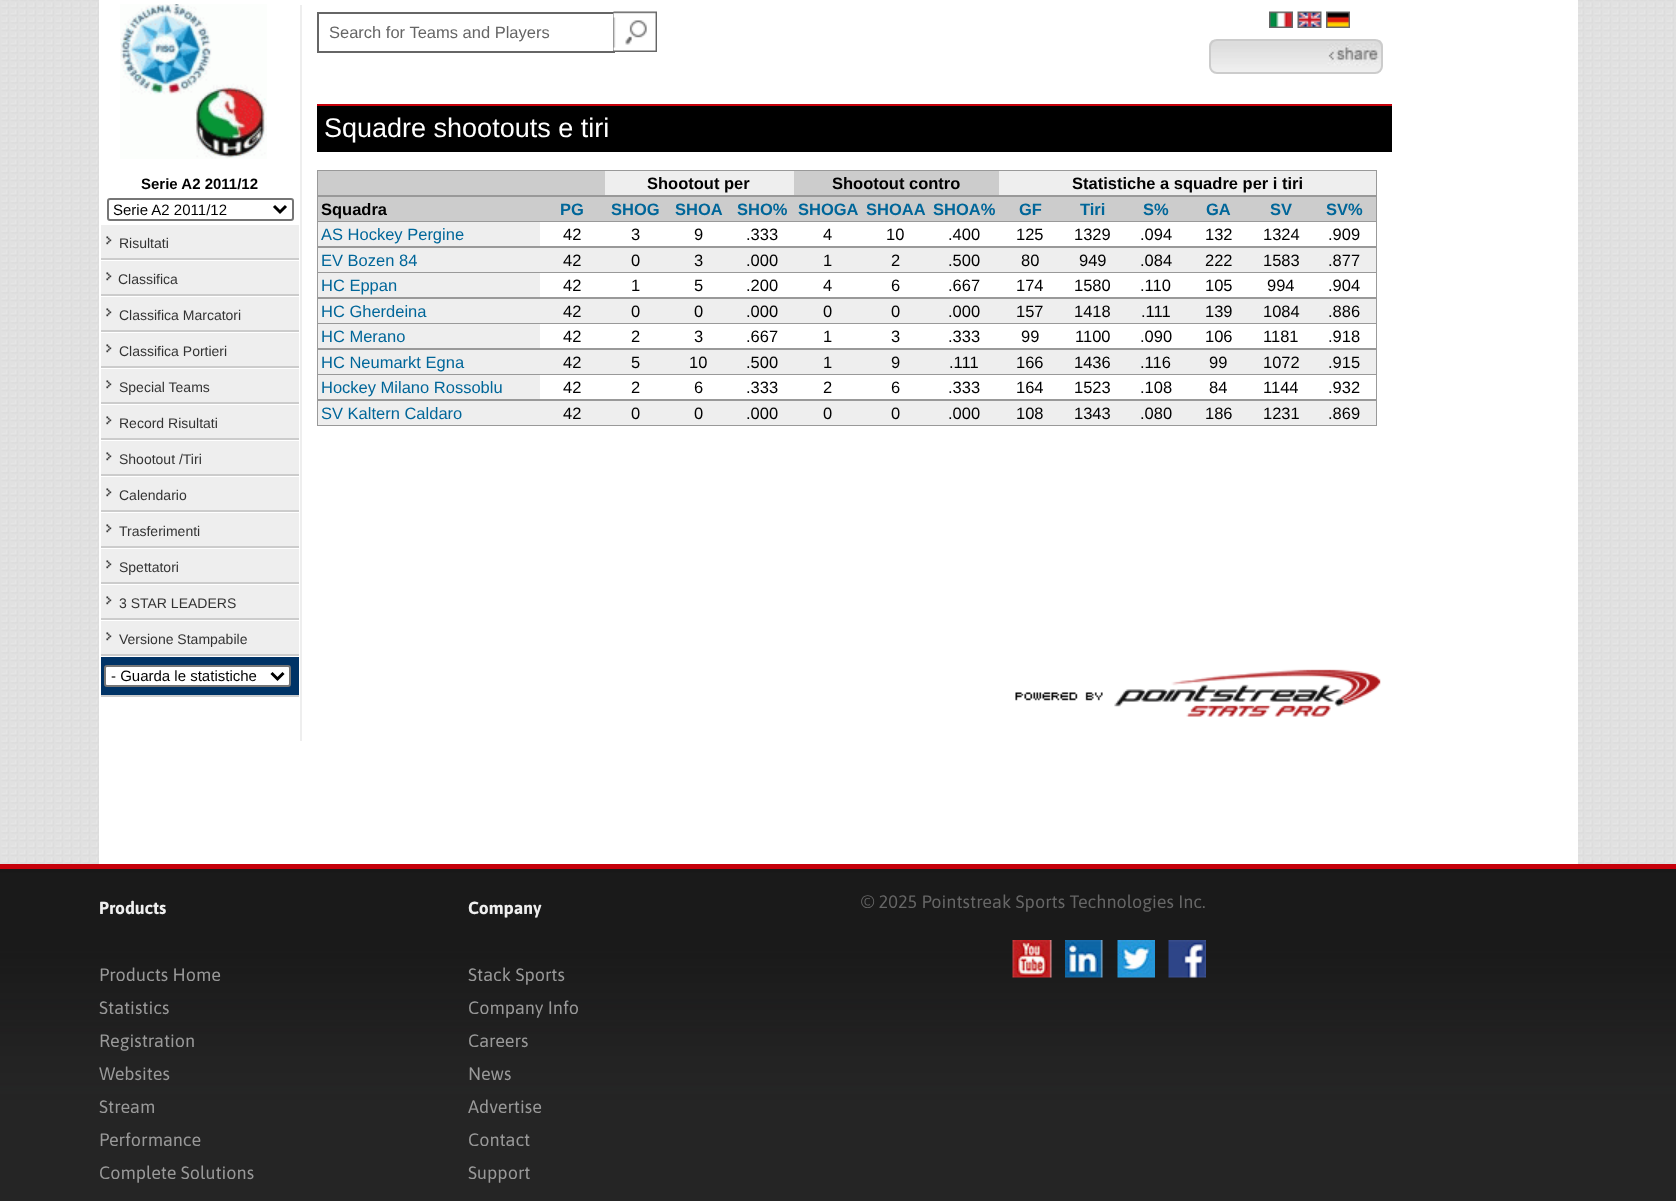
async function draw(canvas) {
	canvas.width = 1676;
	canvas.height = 1201;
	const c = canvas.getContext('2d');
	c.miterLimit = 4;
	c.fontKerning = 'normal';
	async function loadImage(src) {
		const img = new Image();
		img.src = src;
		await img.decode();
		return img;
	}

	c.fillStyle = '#fff';
	c.fillRect(0, 0, 1676, 1201);
	c.drawImage(await loadImage('img1.png'), 0, 0, 1676, 864);
	c.fillRect(99, 0, 1479, 864);
	c.fillStyle = '#eee';
	c.fillRect(300, 5, 2, 736);
	c.drawImage(await loadImage('img2.png'), 120, 4, 147, 155);
	c.font = 'bold 15px Liberation Sans';
	c.fillStyle = '#000';
	c.fillText('Serie A2 2011/12', 141, 189);
	c.beginPath();
	c.roundRect(108, 199, 185, 21, 2);
	c.strokeStyle = '#767676';
	c.lineWidth = 2;
	c.stroke();
	c.beginPath();
	c.moveTo(274, 206);
	c.lineTo(280, 212);
	c.lineTo(286, 206);
	c.strokeStyle = '#000';
	c.lineWidth = 3;
	c.stroke();
	c.font = '15px Liberation Sans';
	c.fillText('Serie A2 2011/12', 113, 215);
	c.fillStyle = '#eee';
	c.fillRect(101, 225, 198, 33);
	c.fillStyle = '#ccc';
	c.fillRect(101, 258, 198, 2);
	c.drawImage(await loadImage('img3.png'), 106, 236, 6, 9);
	c.font = '14px Liberation Sans';
	c.fillStyle = '#333';
	c.fillText('Risultati', 119, 248);
	c.fillStyle = '#eee';
	c.fillRect(101, 261, 198, 33);
	c.fillStyle = '#ccc';
	c.fillRect(101, 294, 198, 2);
	c.drawImage(await loadImage('img3.png'), 106, 272, 6, 9);
	c.fillStyle = '#333';
	c.fillText('Classifica', 118, 284);
	c.fillStyle = '#eee';
	c.fillRect(101, 297, 198, 33);
	c.fillStyle = '#ccc';
	c.fillRect(101, 330, 198, 2);
	c.drawImage(await loadImage('img3.png'), 106, 308, 6, 9);
	c.fillStyle = '#333';
	c.fillText('Classifica Marcatori', 119, 320);
	c.fillStyle = '#eee';
	c.fillRect(101, 333, 198, 33);
	c.fillStyle = '#ccc';
	c.fillRect(101, 366, 198, 2);
	c.drawImage(await loadImage('img3.png'), 106, 344, 6, 9);
	c.fillStyle = '#333';
	c.fillText('Classifica Portieri', 119, 356);
	c.fillStyle = '#eee';
	c.fillRect(101, 369, 198, 33);
	c.fillStyle = '#ccc';
	c.fillRect(101, 402, 198, 2);
	c.drawImage(await loadImage('img3.png'), 106, 380, 6, 9);
	c.fillStyle = '#333';
	c.fillText('Special Teams', 119, 392);
	c.fillStyle = '#eee';
	c.fillRect(101, 405, 198, 33);
	c.fillStyle = '#ccc';
	c.fillRect(101, 438, 198, 2);
	c.drawImage(await loadImage('img3.png'), 106, 416, 6, 9);
	c.fillStyle = '#333';
	c.fillText('Record Risultati', 119, 428);
	c.fillStyle = '#eee';
	c.fillRect(101, 441, 198, 33);
	c.fillStyle = '#ccc';
	c.fillRect(101, 474, 198, 2);
	c.drawImage(await loadImage('img3.png'), 106, 452, 6, 9);
	c.fillStyle = '#333';
	c.fillText('Shootout /Tiri', 119, 464);
	c.fillStyle = '#eee';
	c.fillRect(101, 477, 198, 33);
	c.fillStyle = '#ccc';
	c.fillRect(101, 510, 198, 2);
	c.drawImage(await loadImage('img3.png'), 106, 488, 6, 9);
	c.fillStyle = '#333';
	c.fillText('Calendario', 119, 500);
	c.fillStyle = '#eee';
	c.fillRect(101, 513, 198, 33);
	c.fillStyle = '#ccc';
	c.fillRect(101, 546, 198, 2);
	c.drawImage(await loadImage('img3.png'), 106, 524, 6, 9);
	c.fillStyle = '#333';
	c.fillText('Trasferimenti', 119, 536);
	c.fillStyle = '#eee';
	c.fillRect(101, 549, 198, 33);
	c.fillStyle = '#ccc';
	c.fillRect(101, 582, 198, 2);
	c.drawImage(await loadImage('img3.png'), 106, 560, 6, 9);
	c.fillStyle = '#333';
	c.fillText('Spettatori', 119, 572);
	c.fillStyle = '#eee';
	c.fillRect(101, 585, 198, 33);
	c.fillStyle = '#ccc';
	c.fillRect(101, 618, 198, 2);
	c.drawImage(await loadImage('img3.png'), 106, 596, 6, 9);
	c.fillStyle = '#333';
	c.fillText('3 STAR LEADERS', 119, 608);
	c.fillStyle = '#eee';
	c.fillRect(101, 621, 198, 33);
	c.fillStyle = '#ccc';
	c.fillRect(101, 654, 198, 2);
	c.drawImage(await loadImage('img3.png'), 106, 632, 6, 9);
	c.fillStyle = '#333';
	c.fillText('Versione Stampabile', 119, 644);
	c.fillStyle = '#036';
	c.fillRect(101, 657, 198, 38);
	c.fillStyle = '#ccc';
	c.fillRect(101, 695, 198, 2);
	c.fillStyle = '#fff';
	c.beginPath();
	c.roundRect(105, 666, 185, 20, 2);
	c.fill();
	c.strokeStyle = '#767676';
	c.lineWidth = 2;
	c.stroke();
	c.beginPath();
	c.moveTo(271.5, 673);
	c.lineTo(277.5, 679);
	c.lineTo(283.5, 673);
	c.strokeStyle = '#000';
	c.lineWidth = 3;
	c.stroke();
	c.font = '15px Liberation Sans';
	c.fillStyle = '#000';
	c.fillText('- Guarda le statistiche', 111, 681);
	c.drawImage(await loadImage('img4.png'), 1269, 11, 24, 17);
	c.drawImage(await loadImage('img5.png'), 1297, 11, 25, 17);
	c.drawImage(await loadImage('img6.png'), 1326, 11, 24, 17);
	c.strokeStyle = '#666';
	c.lineWidth = 2;
	c.strokeRect(318, 13, 296, 39);
	c.font = '16.5px Liberation Sans';
	c.fillStyle = '#666';
	c.fillText('Search for Teams and Players', 329, 38);
	c.drawImage(await loadImage('img7.png'), 613, 11, 44, 41);
	c.drawImage(await loadImage('img8.png'), 1209, 40, 174, 33);
	c.beginPath();
	c.roundRect(1210, 40, 172, 33, 7);
	c.strokeStyle = '#ccc';
	c.stroke();
	c.drawImage(await loadImage('img9.png'), 1327, 43, 52, 23);
	c.fillStyle = '#000';
	c.fillRect(317, 106, 1075, 46);
	c.fillStyle = '#c6000a';
	c.fillRect(317, 104, 1075, 2);
	c.font = '27px Liberation Sans';
	c.fillStyle = '#fff';
	c.fillText('Squadre shootouts e tiri', 324, 137);
	for (const [x, y, w, h, color] of [
		[317, 170, 1060, 256, '#999'],
		[318, 171, 681, 24, '#ccc'],
		[605, 171, 189, 24, '#eee'],
	]) {
		c.fillStyle = color;
		c.fillRect(x, y, w, h);
	}
	c.font = 'bold 16.5px Liberation Sans';
	c.fillStyle = '#000';
	c.fillText('Shootout per', 647, 189);
	c.fillText('Shootout contro', 832, 189);
	c.fillStyle = '#eee';
	c.fillRect(999, 171, 377, 24);
	c.fillStyle = '#000';
	c.fillText('Statistiche a squadre per i tiri', 1072, 189);
	c.fillStyle = '#ccc';
	c.fillRect(318, 197, 1058, 24);
	c.fillStyle = '#000';
	c.fillText('Squadra', 321, 215);
	c.fillStyle = '#069';
	for (const [text, x, y] of [
		['PG', 560, 215],
		['SHOG', 611, 215],
		['SHOA', 675, 215],
		['SHO%', 737, 215],
		['SHOGA', 798, 215],
		['SHOAA', 866, 215],
		['SHOA%', 933, 215],
		['GF', 1019, 215],
		['Tiri', 1080, 215],
		['S%', 1143, 215],
		['GA', 1206, 215],
		['SV', 1270, 215],
		['SV%', 1326, 215],
	]) {
		c.fillText(text, x, y);
	}
	c.fillStyle = '#fff';
	c.fillRect(540, 222, 836, 24);
	c.fillStyle = '#eee';
	c.fillRect(318, 222, 222, 24);
	c.font = '16.5px Liberation Sans';
	c.fillStyle = '#069';
	c.fillText('AS Hockey Pergine', 321, 240);
	c.fillStyle = '#000';
	for (const [text, x, y] of [
		['42', 563, 240],
		['3', 631, 240],
		['9', 694, 240],
		['.333', 746, 240],
		['4', 823, 240],
		['10', 886, 240],
		['.400', 948, 240],
		['125', 1016, 240],
		['1329', 1074, 240],
		['.094', 1140, 240],
		['132', 1205, 240],
		['1324', 1263, 240],
		['.909', 1328, 240],
	]) {
		c.fillText(text, x, y);
	}
	c.fillStyle = '#eee';
	c.fillRect(318, 248, 1058, 24);
	c.fillStyle = '#069';
	c.fillText('EV Bozen 84', 321, 266);
	c.fillStyle = '#000';
	for (const [text, x, y] of [
		['42', 563, 266],
		['0', 631, 266],
		['3', 694, 266],
		['.000', 746, 266],
		['1', 823, 266],
		['2', 891, 266],
		['.500', 948, 266],
		['80', 1021, 266],
		['949', 1079, 266],
		['.084', 1140, 266],
		['222', 1205, 266],
		['1583', 1263, 266],
		['.877', 1328, 266],
	]) {
		c.fillText(text, x, y);
	}
	c.fillStyle = '#fff';
	c.fillRect(540, 273, 836, 24);
	c.fillStyle = '#eee';
	c.fillRect(318, 273, 222, 24);
	c.fillStyle = '#069';
	c.fillText('HC Eppan', 321, 291);
	c.fillStyle = '#000';
	for (const [text, x, y] of [
		['42', 563, 291],
		['1', 631, 291],
		['5', 694, 291],
		['.200', 746, 291],
		['4', 823, 291],
		['6', 891, 291],
		['.667', 948, 291],
		['174', 1016, 291],
		['1580', 1074, 291],
		['.110', 1140, 291],
		['105', 1205, 291],
		['994', 1267, 291],
		['.904', 1328, 291],
	]) {
		c.fillText(text, x, y);
	}
	c.fillStyle = '#eee';
	c.fillRect(318, 299, 1058, 24);
	c.fillStyle = '#069';
	c.fillText('HC Gherdeina', 321, 317);
	c.fillStyle = '#000';
	for (const [text, x, y] of [
		['42', 563, 317],
		['0', 631, 317],
		['0', 694, 317],
		['.000', 746, 317],
		['0', 823, 317],
		['0', 891, 317],
		['.000', 948, 317],
		['157', 1016, 317],
		['1418', 1074, 317],
		['.111', 1141, 317],
		['139', 1205, 317],
		['1084', 1263, 317],
		['.886', 1328, 317],
	]) {
		c.fillText(text, x, y);
	}
	c.fillStyle = '#fff';
	c.fillRect(540, 324, 836, 24);
	c.fillStyle = '#eee';
	c.fillRect(318, 324, 222, 24);
	c.fillStyle = '#069';
	c.fillText('HC Merano', 321, 342);
	c.fillStyle = '#000';
	for (const [text, x, y] of [
		['42', 563, 342],
		['2', 631, 342],
		['3', 694, 342],
		['.667', 746, 342],
		['1', 823, 342],
		['3', 891, 342],
		['.333', 948, 342],
		['99', 1021, 342],
		['1100', 1075, 342],
		['.090', 1140, 342],
		['106', 1205, 342],
		['1181', 1263, 342],
		['.918', 1328, 342],
	]) {
		c.fillText(text, x, y);
	}
	c.fillStyle = '#eee';
	c.fillRect(318, 350, 1058, 24);
	c.fillStyle = '#069';
	c.fillText('HC Neumarkt Egna', 321, 368);
	c.fillStyle = '#000';
	for (const [text, x, y] of [
		['42', 563, 368],
		['5', 631, 368],
		['10', 689, 368],
		['.500', 746, 368],
		['1', 823, 368],
		['9', 891, 368],
		['.111', 949, 368],
		['166', 1016, 368],
		['1436', 1074, 368],
		['.116', 1140, 368],
		['99', 1209, 368],
		['1072', 1263, 368],
		['.915', 1328, 368],
	]) {
		c.fillText(text, x, y);
	}
	c.fillStyle = '#fff';
	c.fillRect(540, 375, 836, 24);
	c.fillStyle = '#eee';
	c.fillRect(318, 375, 222, 24);
	c.fillStyle = '#069';
	c.fillText('Hockey Milano Rossoblu', 321, 393);
	c.fillStyle = '#000';
	for (const [text, x, y] of [
		['42', 563, 393],
		['2', 631, 393],
		['6', 694, 393],
		['.333', 746, 393],
		['2', 823, 393],
		['6', 891, 393],
		['.333', 948, 393],
		['164', 1016, 393],
		['1523', 1074, 393],
		['.108', 1140, 393],
		['84', 1209, 393],
		['1144', 1263, 393],
		['.932', 1328, 393],
	]) {
		c.fillText(text, x, y);
	}
	c.fillStyle = '#eee';
	c.fillRect(318, 401, 1058, 24);
	c.fillStyle = '#069';
	c.fillText('SV Kaltern Caldaro', 321, 419);
	c.fillStyle = '#000';
	for (const [text, x, y] of [
		['42', 563, 419],
		['0', 631, 419],
		['0', 694, 419],
		['.000', 746, 419],
		['0', 823, 419],
		['0', 891, 419],
		['.000', 948, 419],
		['108', 1016, 419],
		['1343', 1074, 419],
		['.080', 1140, 419],
		['186', 1205, 419],
		['1231', 1263, 419],
		['.869', 1328, 419],
	]) {
		c.fillText(text, x, y);
	}
	c.drawImage(await loadImage('img10.png'), 1015, 669, 366, 48);
	c.drawImage(await loadImage('img11.png'), 0, 869, 1676, 332);
	c.fillStyle = '#c6000a';
	c.fillRect(0, 864, 1676, 5);
	c.font = 'bold 17.5px Asap';
	c.fillStyle = '#eee';
	c.fillText('Products', 99, 914);
	c.font = '18px Asap';
	c.fillStyle = '#999';
	for (const [text, x, y] of [
		['Products Home', 99, 981],
		['Statistics', 99, 1014],
		['Registration', 99, 1047],
		['Websites', 99, 1080],
		['Stream', 99, 1113],
		['Performance', 99, 1146],
		['Complete Solutions', 99, 1179],
	]) {
		c.fillText(text, x, y);
	}
	c.font = 'bold 17.5px Asap';
	c.fillStyle = '#eee';
	c.fillText('Company', 468, 914);
	c.font = '18px Asap';
	c.fillStyle = '#999';
	for (const [text, x, y] of [
		['Stack Sports', 468, 981],
		['Company Info', 468, 1014],
		['Careers', 468, 1047],
		['News', 468, 1080],
		['Advertise', 468, 1113],
		['Contact', 468, 1146],
		['Support', 468, 1179],
	]) {
		c.fillText(text, x, y);
	}
	c.fillStyle = '#666';
	c.fillText('© 2025 Pointstreak Sports Technologies Inc.', 861, 908);
	c.drawImage(await loadImage('img12.png'), 1012, 940, 40, 38);
	c.drawImage(await loadImage('img13.png'), 1065, 940, 38, 38);
	c.drawImage(await loadImage('img14.png'), 1117, 940, 38, 38);
	c.drawImage(await loadImage('img15.png'), 1168, 940, 38, 38);
}

draw(document.querySelector('canvas'));
